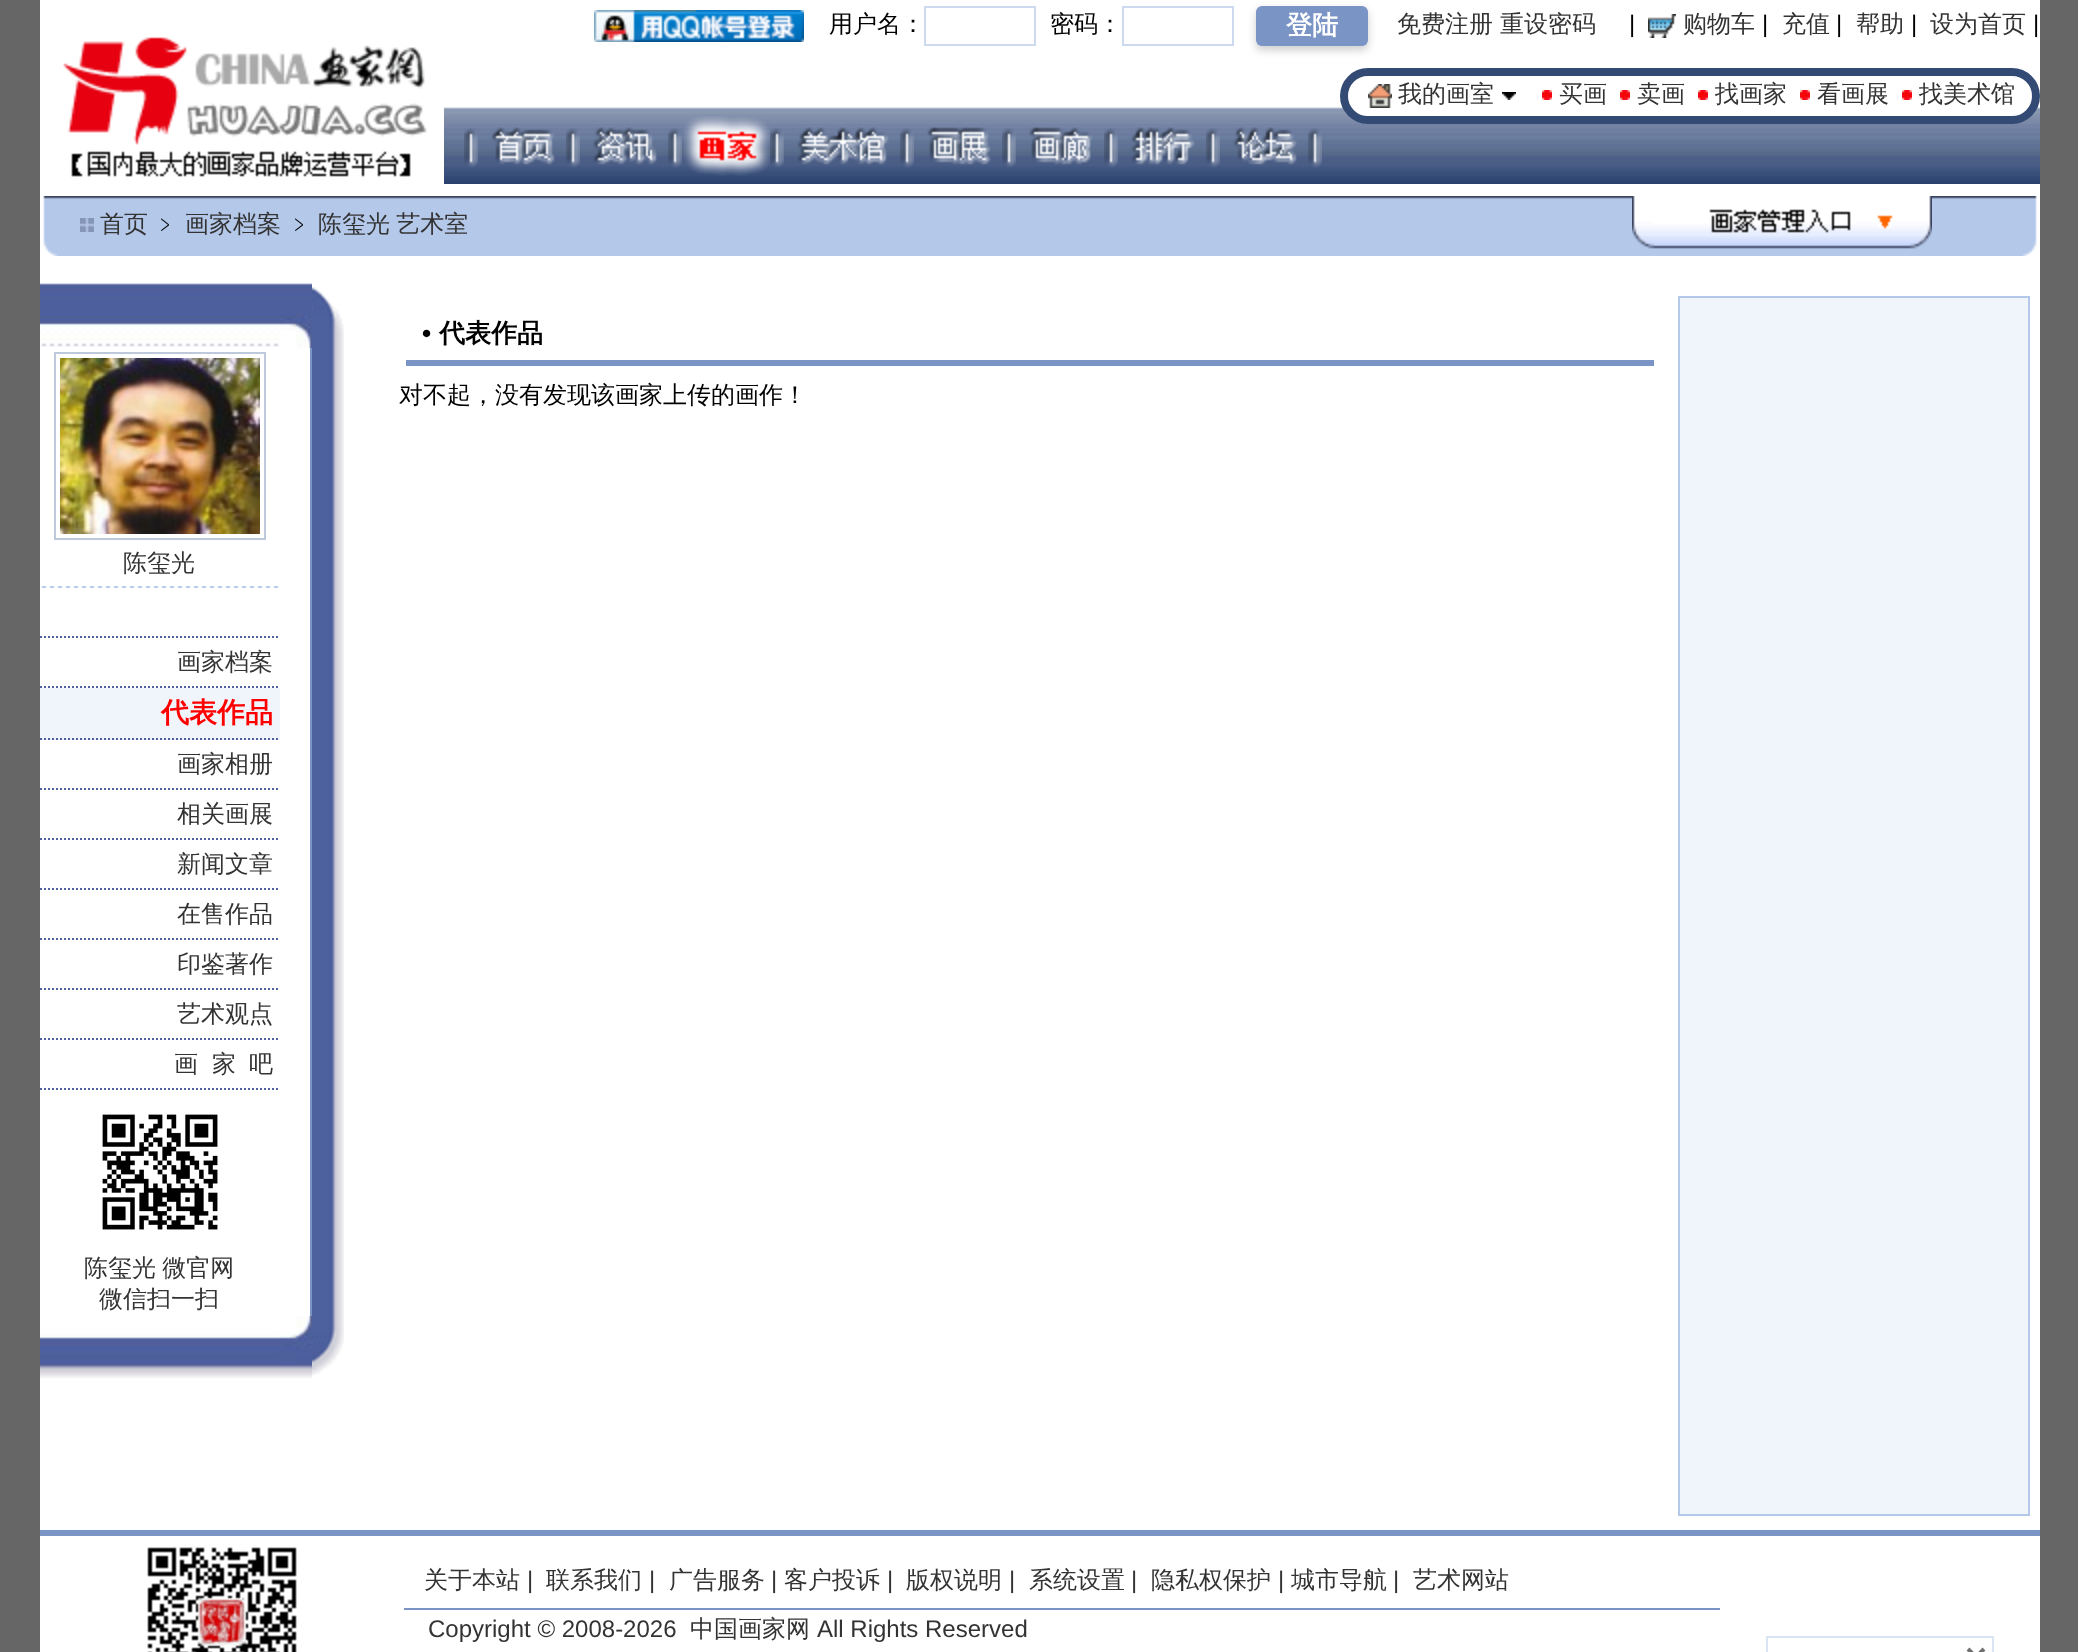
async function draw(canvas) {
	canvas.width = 2078;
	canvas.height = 1652;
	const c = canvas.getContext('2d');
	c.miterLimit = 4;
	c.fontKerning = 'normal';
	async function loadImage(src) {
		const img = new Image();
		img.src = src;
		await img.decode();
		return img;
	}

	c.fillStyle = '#666';
	c.fillRect(0, 0, 2078, 1652);
	c.fillStyle = '#fff';
	c.fillRect(40, 0, 2000, 1652);
	c.drawImage(await loadImage('img1.png'), 40, 37, 404, 147);
	c.drawImage(await loadImage('img2.png'), 594, 10, 210, 32);
	c.font = '500 24px WenQuanYi Zen Hei';
	c.fillStyle = '#000';
	c.fillText('用户名：', 829, 32);
	c.strokeStyle = '#ccd9ee';
	c.lineWidth = 2;
	c.strokeRect(925, 7, 110, 38);
	c.fillText('密码：', 1050, 32);
	c.strokeRect(1123, 7, 110, 38);
	c.fillStyle = '#00000033';
	c.filter = 'blur(4px)';
	c.beginPath();
	c.roundRect(1256, 10, 112, 40, 6);
	c.fill();
	c.filter = 'none';
	c.fillStyle = '#7a94c5';
	c.beginPath();
	c.roundRect(1256, 6, 112, 40, 6);
	c.fill();
	c.font = 'bold 26px WenQuanYi Zen Hei';
	c.fillStyle = '#fff';
	c.fillText('登陆', 1286, 34);
	c.font = '500 24px WenQuanYi Zen Hei';
	c.fillStyle = '#333';
	c.fillText('免费注册', 1397, 32);
	c.fillText('重设密码', 1500, 32);
	c.font = '24px Liberation Sans';
	c.fillStyle = '#000';
	c.fillText('|', 1629, 32);
	c.drawImage(await loadImage('img3.png'), 1648, 14, 28, 24);
	c.font = '500 24px WenQuanYi Zen Hei';
	c.fillStyle = '#333';
	c.fillText('购物车', 1683, 32);
	c.font = '24px Liberation Sans';
	c.fillStyle = '#000';
	c.fillText('|', 1762, 32);
	c.font = '500 24px WenQuanYi Zen Hei';
	c.fillStyle = '#333';
	c.fillText('充值', 1782, 32);
	c.font = '24px Liberation Sans';
	c.fillStyle = '#000';
	c.fillText('|', 1836, 32);
	c.font = '500 24px WenQuanYi Zen Hei';
	c.fillStyle = '#333';
	c.fillText('帮助', 1856, 32);
	c.font = '24px Liberation Sans';
	c.fillStyle = '#000';
	c.fillText('|', 1911, 32);
	c.font = '500 24px WenQuanYi Zen Hei';
	c.fillStyle = '#333';
	c.fillText('设为首页', 1930, 32);
	c.font = '24px Liberation Sans';
	c.fillStyle = '#000';
	c.fillText('|', 2033, 32);
	c.drawImage(await loadImage('img5.png'), 444, 107, 1596, 77);
	c.fillStyle = '#fff';
	c.beginPath();
	c.roundRect(1344, 72, 692, 48, 24);
	c.fill();
	c.strokeStyle = '#334a74';
	c.lineWidth = 8;
	c.stroke();
	c.drawImage(await loadImage('img4.png'), 1542, 90, 10, 10);
	c.font = '500 24px WenQuanYi Zen Hei';
	c.fillStyle = '#333';
	c.fillText('买画', 1559, 102);
	c.drawImage(await loadImage('img4.png'), 1620, 90, 10, 10);
	c.fillText('卖画', 1637, 102);
	c.drawImage(await loadImage('img4.png'), 1698, 90, 10, 10);
	c.fillText('找画家', 1715, 102);
	c.drawImage(await loadImage('img4.png'), 1800, 90, 10, 10);
	c.fillText('看画展', 1817, 102);
	c.drawImage(await loadImage('img4.png'), 1902, 90, 10, 10);
	c.fillText('找美术馆', 1919, 102);
	c.drawImage(await loadImage('img6.png'), 464, 128, 14, 40);
	c.drawImage(await loadImage('img7.png'), 491, 127, 64, 38);
	c.drawImage(await loadImage('img6.png'), 566, 128, 14, 40);
	c.drawImage(await loadImage('img8.png'), 593, 127, 64, 38);
	c.drawImage(await loadImage('img6.png'), 668, 128, 14, 40);
	c.drawImage(await loadImage('img9.png'), 683, 116, 87, 60);
	c.drawImage(await loadImage('img6.png'), 770, 128, 14, 40);
	c.drawImage(await loadImage('img10.png'), 797, 127, 92, 38);
	c.drawImage(await loadImage('img6.png'), 900, 128, 14, 40);
	c.drawImage(await loadImage('img11.png'), 927, 127, 64, 38);
	c.drawImage(await loadImage('img6.png'), 1002, 128, 14, 40);
	c.drawImage(await loadImage('img12.png'), 1029, 127, 64, 38);
	c.drawImage(await loadImage('img6.png'), 1104, 128, 14, 40);
	c.drawImage(await loadImage('img13.png'), 1131, 127, 64, 38);
	c.drawImage(await loadImage('img6.png'), 1206, 128, 14, 40);
	c.drawImage(await loadImage('img14.png'), 1233, 127, 64, 38);
	c.drawImage(await loadImage('img6.png'), 1308, 128, 14, 40);
	c.drawImage(await loadImage('img15.png'), 1368, 84, 24, 24);
	c.fillText('我的画室', 1398, 102);
	c.drawImage(await loadImage('img16.png'), 1502, 92, 14, 8);
	c.drawImage(await loadImage('img17.png'), 58, 196, 1964, 60);
	c.drawImage(await loadImage('img18.png'), 40, 196, 18, 60);
	c.drawImage(await loadImage('img19.png'), 80, 218, 14, 14);
	c.fillText('首页', 100, 232);
	c.fillStyle = '#000';
	c.fillText('﹥', 154, 232);
	c.fillStyle = '#333';
	c.fillText('画家档案', 185, 232);
	c.fillStyle = '#000';
	c.fillText('﹥', 288, 232);
	c.wordSpacing = '-1px';
	c.fillStyle = '#333';
	c.fillText('陈玺光 艺术室', 318, 232);
	c.drawImage(await loadImage('img20.png'), 1632, 196, 300, 53);
	c.drawImage(await loadImage('img21.png'), 2022, 196, 18, 60);
	c.fillStyle = '#7a94c5';
	c.fillRect(406, 360, 1248, 6);
	c.wordSpacing = '0px';
	c.font = 'bold 26px Liberation Sans';
	c.fillStyle = '#000';
	c.fillText('•', 422, 342);
	c.font = 'bold 26px WenQuanYi Zen Hei';
	c.fillText('代表作品', 439, 342);
	c.font = '500 24px WenQuanYi Zen Hei';
	c.fillText('对不起，没有发现该画家上传的画作！', 399, 403);
	c.fillStyle = '#eff5fb';
	c.beginPath();
	c.rect(1679, 297, 350, 1218);
	c.fill();
	c.strokeStyle = '#b4c8ea';
	c.lineWidth = 2;
	c.stroke();
	c.drawImage(await loadImage('img22.png'), 40, 283, 272, 65);
	c.drawImage(await loadImage('img23.png'), 312, 287, 32, 1089);
	c.fillStyle = '#7a94c5';
	c.fillRect(310, 348, 2, 968);
	c.strokeStyle = '#bec9db';
	c.strokeRect(55, 353, 210, 186);
	c.drawImage(await loadImage('img24.png'), 60, 358, 200, 176);
	c.fillStyle = '#333';
	c.fillText('陈玺光', 123, 571);
	c.drawImage(await loadImage('img25.png'), 41, 586, 238, 2);
	c.beginPath();
	c.moveTo(40, 637);
	c.lineTo(280, 637);
	c.strokeStyle = '#4d5f9c';
	c.setLineDash([2, 2]);
	c.stroke();
	c.beginPath();
	c.moveTo(40, 687);
	c.lineTo(280, 687);
	c.stroke();
	c.fillText('画家档案', 177, 670);
	c.fillStyle = '#eff5fb';
	c.fillRect(40, 688, 240, 52);
	c.beginPath();
	c.moveTo(40, 739);
	c.lineTo(280, 739);
	c.stroke();
	c.font = 'bold 28px WenQuanYi Zen Hei';
	c.fillStyle = '#f00';
	c.fillText('代表作品', 161, 722);
	c.beginPath();
	c.moveTo(40, 789);
	c.lineTo(280, 789);
	c.stroke();
	c.font = '500 24px WenQuanYi Zen Hei';
	c.fillStyle = '#333';
	c.fillText('画家相册', 177, 772);
	c.beginPath();
	c.moveTo(40, 839);
	c.lineTo(280, 839);
	c.stroke();
	c.fillText('相关画展', 177, 822);
	c.beginPath();
	c.moveTo(40, 889);
	c.lineTo(280, 889);
	c.stroke();
	c.fillText('新闻文章', 177, 872);
	c.beginPath();
	c.moveTo(40, 939);
	c.lineTo(280, 939);
	c.stroke();
	c.fillText('在售作品', 177, 922);
	c.beginPath();
	c.moveTo(40, 989);
	c.lineTo(280, 989);
	c.stroke();
	c.fillText('印鉴著作', 177, 972);
	c.beginPath();
	c.moveTo(40, 1039);
	c.lineTo(280, 1039);
	c.stroke();
	c.fillText('艺术观点', 177, 1022);
	c.beginPath();
	c.moveTo(40, 1089);
	c.lineTo(280, 1089);
	c.stroke();
	for (const [text, x, y] of [
		['画', 174, 1072],
		['家', 212, 1072],
		['吧', 249, 1072],
	]) {
		c.fillText(text, x, y);
	}
	c.drawImage(await loadImage('img26.png'), 102, 1114, 116, 116);
	c.wordSpacing = '-1px';
	c.fillText('陈玺光 微官网', 84, 1276);
	c.wordSpacing = '0px';
	c.fillText('微信扫一扫', 99, 1307);
	c.drawImage(await loadImage('img27.png'), 40, 1316, 272, 63);
	c.fillStyle = '#7a94c5';
	c.fillRect(40, 1530, 2000, 6);
	c.drawImage(await loadImage('img28.png'), 147, 1546, 150, 106);
	c.fillRect(404, 1608, 1316, 2);
	c.fillStyle = '#333';
	c.fillText('关于本站', 424, 1588);
	c.font = '24px Liberation Sans';
	c.fillText('|', 527, 1588);
	c.font = '500 24px WenQuanYi Zen Hei';
	c.fillText('联系我们', 546, 1588);
	c.font = '24px Liberation Sans';
	c.fillText('|', 649, 1588);
	c.font = '500 24px WenQuanYi Zen Hei';
	c.fillText('广告服务', 669, 1588);
	c.font = '24px Liberation Sans';
	c.fillText('|', 771, 1588);
	c.font = '500 24px WenQuanYi Zen Hei';
	c.fillText('客户投诉', 784, 1588);
	c.font = '24px Liberation Sans';
	c.fillText('|', 887, 1588);
	c.font = '500 24px WenQuanYi Zen Hei';
	c.fillText('版权说明', 906, 1588);
	c.font = '24px Liberation Sans';
	c.fillText('|', 1009, 1588);
	c.font = '500 24px WenQuanYi Zen Hei';
	c.fillText('系统设置', 1029, 1588);
	c.font = '24px Liberation Sans';
	c.fillText('|', 1131, 1588);
	c.font = '500 24px WenQuanYi Zen Hei';
	c.fillText('隐私权保护', 1151, 1588);
	c.font = '24px Liberation Sans';
	c.fillText('|', 1278, 1588);
	c.font = '500 24px WenQuanYi Zen Hei';
	c.fillText('城市导航', 1291, 1588);
	c.font = '24px Liberation Sans';
	c.fillText('|', 1393, 1588);
	c.font = '500 24px WenQuanYi Zen Hei';
	c.fillText('艺术网站', 1413, 1588);
	c.font = '24px Liberation Sans';
	c.fillText('Copyright © 2008-2026', 428, 1637);
	c.font = '500 24px WenQuanYi Zen Hei';
	c.fillText('中国画家网', 690, 1637);
	c.font = '24px Liberation Sans';
	c.fillText('All Rights Reserved', 817, 1637);
	c.strokeStyle = '#dbe4f3';
	c.setLineDash([]);
	c.strokeRect(1767, 1637, 226, 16);
	c.beginPath();
	c.moveTo(1968, 1649);
	c.lineTo(1976, 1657);
	c.lineTo(1984, 1649);
	c.strokeStyle = '#707070';
	c.lineWidth = 4;
	c.stroke();
}

draw(document.querySelector('canvas'));
